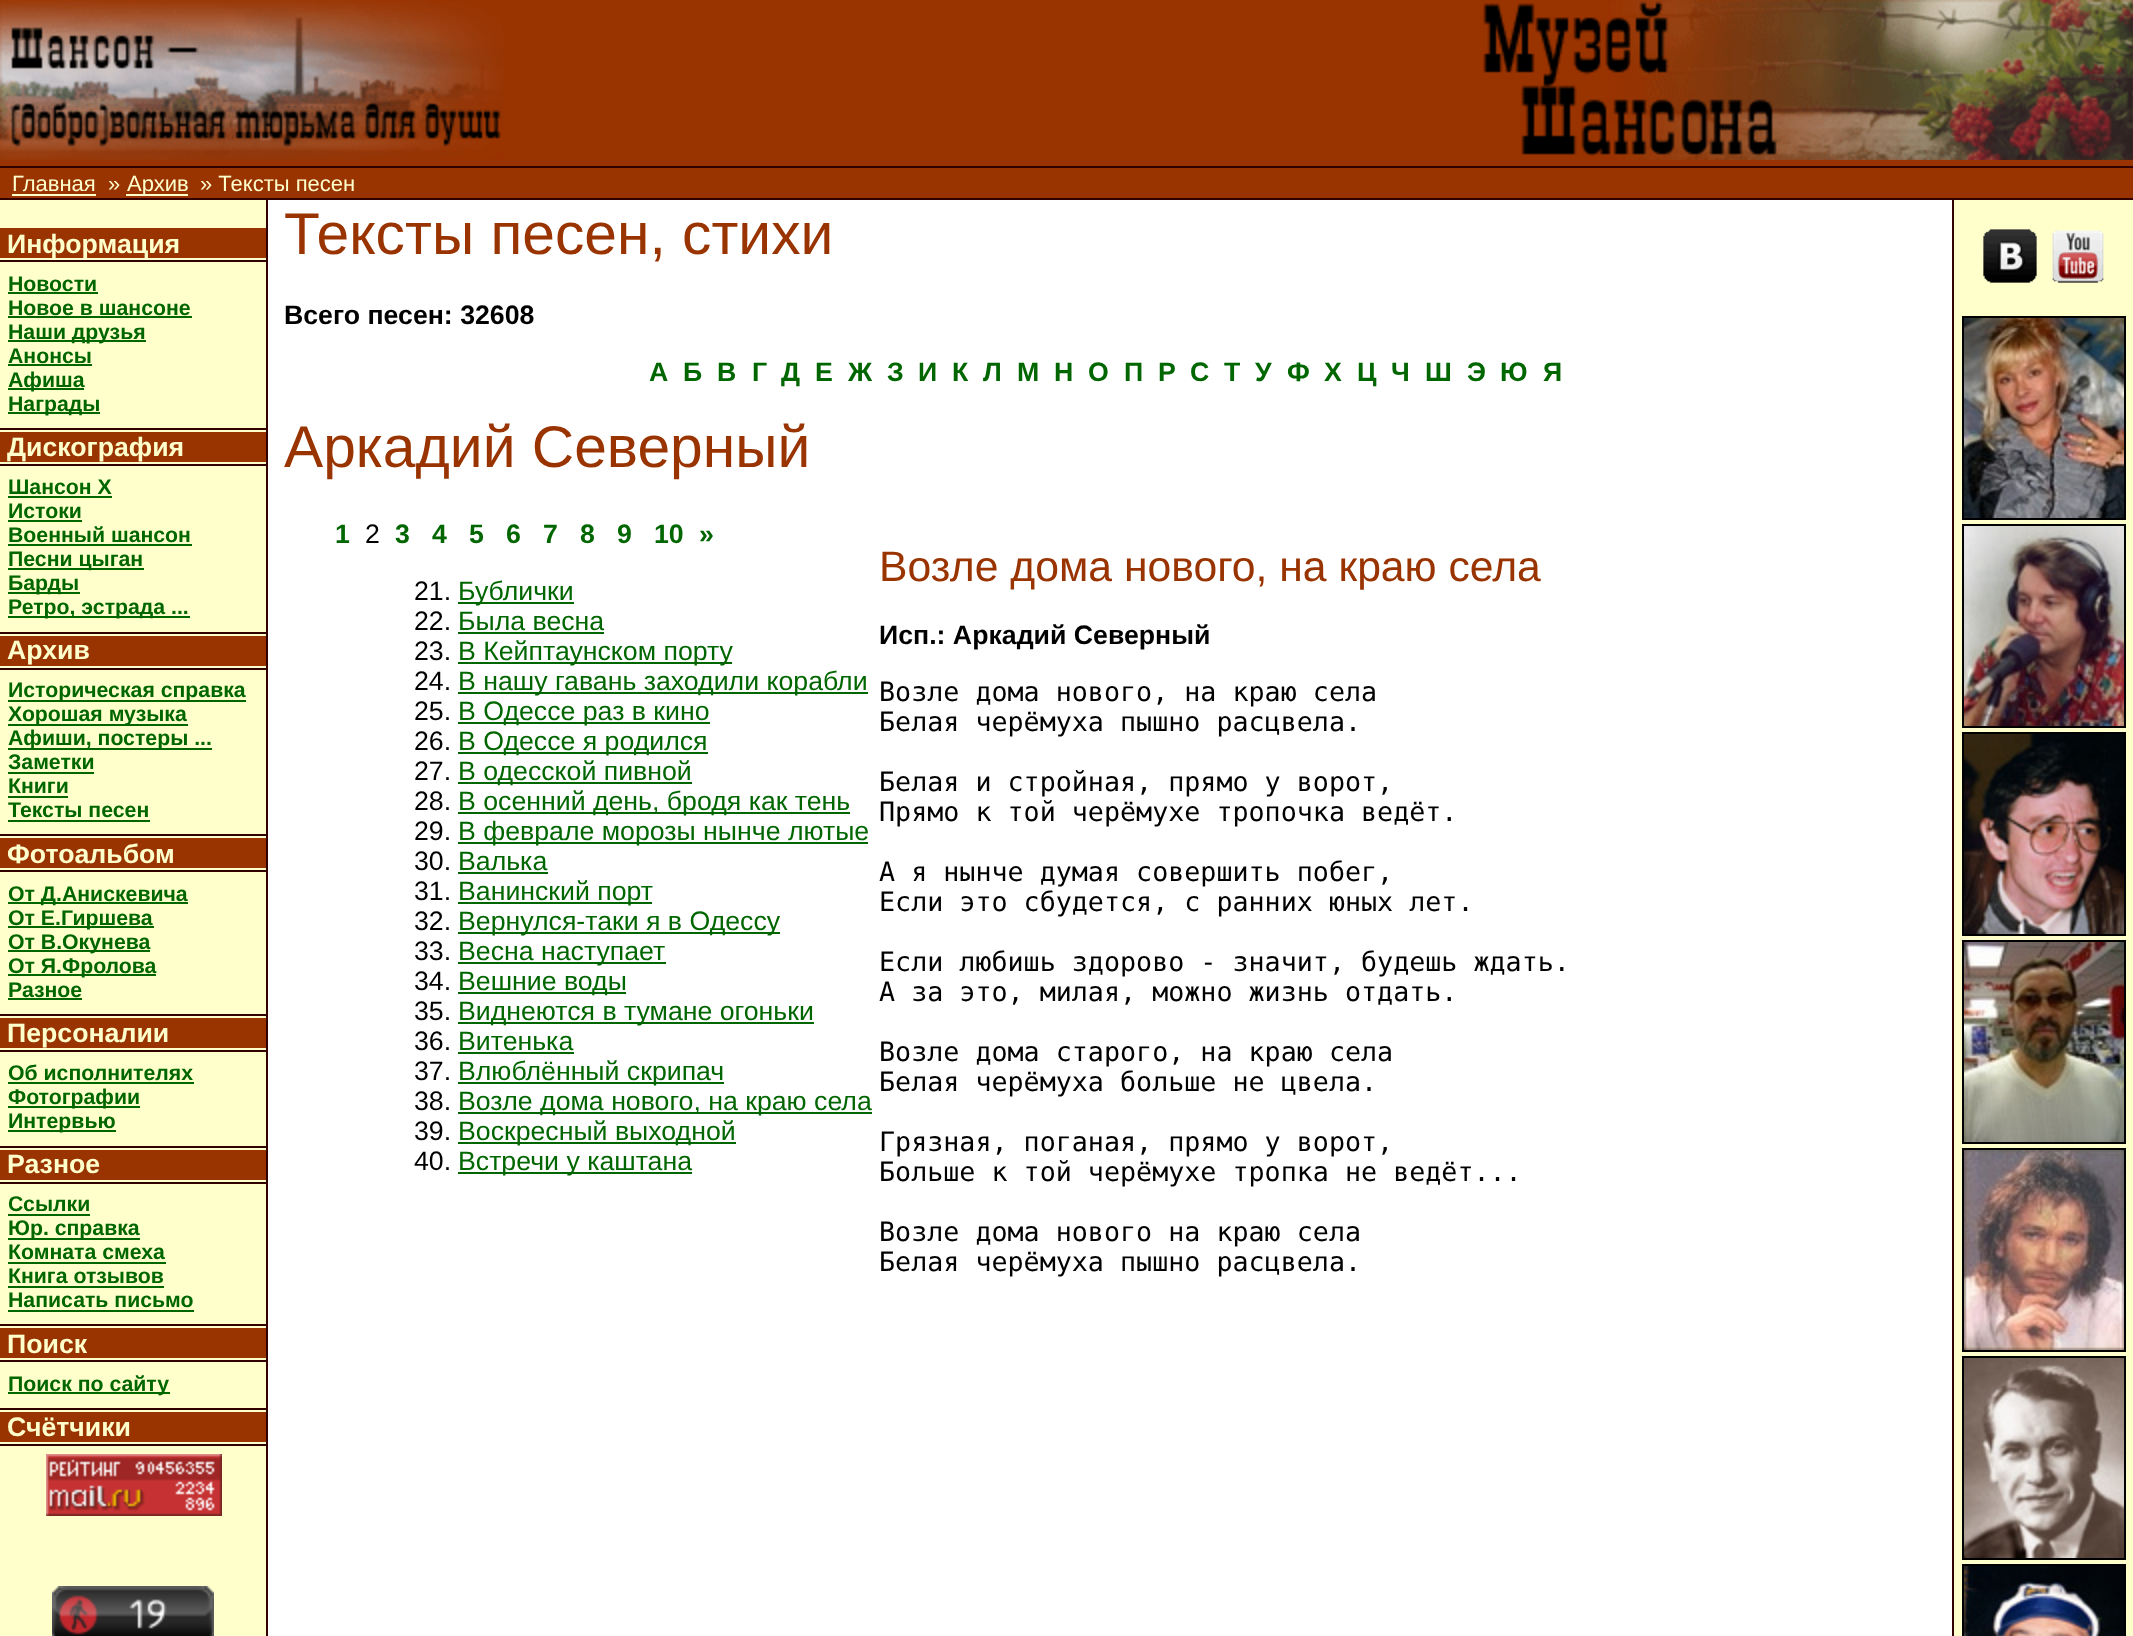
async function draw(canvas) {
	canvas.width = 2133;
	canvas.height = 1636;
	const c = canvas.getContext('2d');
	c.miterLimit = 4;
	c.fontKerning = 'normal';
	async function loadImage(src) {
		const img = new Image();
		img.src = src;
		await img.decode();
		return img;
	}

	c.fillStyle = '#fff';
	c.fillRect(0, 0, 2133, 1636);
	c.fillStyle = '#930';
	c.fillRect(0, 0, 2133, 166);
	c.drawImage(await loadImage('img1.png'), 0, 0, 504, 160);
	c.drawImage(await loadImage('img2.png'), 1483, 0, 650, 160);
	for (const [x, y, w, h, color] of [
		[0, 168, 2133, 30, '#930'],
		[0, 166, 2133, 2, '#300'],
		[0, 198, 2133, 2, '#300'],
	]) {
		c.fillStyle = color;
		c.fillRect(x, y, w, h);
	}
	c.font = '22px Liberation Sans';
	c.fillStyle = '#ffc';
	c.fillText('Главная', 12, 191);
	c.fillRect(12, 194, 84, 2);
	c.fillText('»', 108, 191);
	c.fillRect(126, 194, 62, 2);
	c.fillText('Архив', 127, 191);
	c.fillText('» Тексты песен', 200, 191);
	c.fillRect(0, 200, 266, 1436);
	c.fillStyle = '#930';
	c.fillRect(0, 228, 266, 30);
	c.font = 'bold 26.7px Liberation Sans';
	c.fillStyle = '#ffc';
	c.fillText('Информация', 7, 253);
	c.fillStyle = '#300';
	c.fillRect(0, 260, 266, 2);
	c.fillRect(0, 428, 266, 2);
	c.font = 'bold 21.25px Liberation Sans';
	c.fillStyle = '#060';
	c.fillText('Новости', 8, 291);
	c.fillRect(8, 292, 90, 2);
	c.fillText('Новое в шансоне', 8, 315);
	c.fillRect(8, 316, 184, 2);
	c.fillRect(8, 340, 138, 2);
	c.fillText('Наши друзья', 8, 339);
	c.fillText('Анонсы', 8, 363);
	c.fillRect(8, 364, 84, 2);
	c.fillRect(8, 388, 76, 2);
	c.fillText('Афиша', 8, 387);
	c.fillRect(8, 412, 92, 2);
	c.fillText('Награды', 8, 411);
	c.fillStyle = '#930';
	c.fillRect(0, 432, 266, 30);
	c.font = 'bold 26.7px Liberation Sans';
	c.fillStyle = '#ffc';
	c.fillText('Дискография', 7, 456);
	c.fillStyle = '#300';
	c.fillRect(0, 464, 266, 2);
	c.fillRect(0, 632, 266, 2);
	c.font = 'bold 21.25px Liberation Sans';
	c.fillStyle = '#060';
	c.fillText('Шансон X', 8, 494);
	c.fillRect(8, 496, 104, 2);
	c.fillText('Истоки', 8, 518);
	c.fillRect(8, 520, 74, 2);
	c.fillText('Военный шансон', 8, 542);
	c.fillRect(8, 544, 184, 2);
	c.fillRect(8, 568, 136, 2);
	c.fillText('Песни цыган', 8, 566);
	c.fillRect(8, 592, 72, 2);
	c.fillText('Барды', 8, 590);
	c.fillRect(8, 616, 182, 2);
	c.fillText('Ретро, эстрада ...', 8, 614);
	c.fillStyle = '#930';
	c.fillRect(0, 636, 266, 30);
	c.font = 'bold 26.7px Liberation Sans';
	c.fillStyle = '#ffc';
	c.fillText('Архив', 7, 659);
	for (const [x, y, w, h, color] of [
		[0, 668, 266, 2, '#300'],
		[0, 834, 266, 2, '#300'],
		[8, 700, 238, 2, '#060'],
	]) {
		c.fillStyle = color;
		c.fillRect(x, y, w, h);
	}
	c.font = 'bold 21.25px Liberation Sans';
	c.fillText('Историческая справка', 8, 697);
	c.fillRect(8, 724, 180, 2);
	c.fillText('Хорошая музыка', 8, 721);
	c.fillRect(8, 748, 204, 2);
	c.fillText('Афиши, постеры ...', 8, 745);
	c.fillText('Заметки', 8, 769);
	c.fillRect(8, 772, 86, 2);
	c.fillText('Книги', 8, 793);
	c.fillRect(8, 796, 60, 2);
	c.fillText('Тексты песен', 8, 817);
	c.fillRect(8, 820, 142, 2);
	c.fillStyle = '#930';
	c.fillRect(0, 838, 266, 30);
	c.font = 'bold 26.7px Liberation Sans';
	c.fillStyle = '#ffc';
	c.fillText('Фотоальбом', 7, 863);
	for (const [x, y, w, h, color] of [
		[0, 870, 266, 2, '#300'],
		[0, 1014, 266, 2, '#300'],
		[8, 902, 180, 2, '#060'],
	]) {
		c.fillStyle = color;
		c.fillRect(x, y, w, h);
	}
	c.font = 'bold 21.25px Liberation Sans';
	c.fillText('От Д.Анискевича', 8, 901);
	c.fillRect(8, 926, 146, 2);
	c.fillText('От Е.Гиршева', 8, 925);
	c.fillRect(8, 950, 142, 2);
	c.fillText('От В.Окунева', 8, 949);
	c.fillRect(8, 974, 148, 2);
	c.fillText('От Я.Фролова', 8, 973);
	c.fillText('Разное', 8, 997);
	c.fillRect(8, 998, 74, 2);
	c.fillStyle = '#930';
	c.fillRect(0, 1018, 266, 30);
	c.font = 'bold 26.7px Liberation Sans';
	c.fillStyle = '#ffc';
	c.fillText('Персоналии', 7, 1042);
	c.fillStyle = '#300';
	c.fillRect(0, 1050, 266, 2);
	c.fillRect(0, 1146, 266, 2);
	c.font = 'bold 21.25px Liberation Sans';
	c.fillStyle = '#060';
	c.fillText('Об исполнителях', 8, 1080);
	c.fillRect(8, 1082, 186, 2);
	c.fillRect(8, 1106, 132, 2);
	c.fillText('Фотографии', 8, 1104);
	c.fillRect(8, 1130, 108, 2);
	c.fillText('Интервью', 8, 1128);
	c.fillStyle = '#930';
	c.fillRect(0, 1150, 266, 30);
	c.font = 'bold 26.7px Liberation Sans';
	c.fillStyle = '#ffc';
	c.fillText('Разное', 7, 1173);
	c.fillStyle = '#300';
	c.fillRect(0, 1182, 266, 2);
	c.fillRect(0, 1324, 266, 2);
	c.font = 'bold 21.25px Liberation Sans';
	c.fillStyle = '#060';
	c.fillText('Ссылки', 8, 1211);
	c.fillRect(8, 1214, 82, 2);
	c.fillRect(8, 1238, 132, 2);
	c.fillText('Юр. справка', 8, 1235);
	c.fillText('Комната смеха', 8, 1259);
	c.fillRect(8, 1262, 158, 2);
	c.fillText('Книга отзывов', 8, 1283);
	c.fillRect(8, 1286, 156, 2);
	c.fillText('Написать письмо', 8, 1307);
	c.fillRect(8, 1310, 186, 2);
	c.fillStyle = '#930';
	c.fillRect(0, 1328, 266, 30);
	c.font = 'bold 26.7px Liberation Sans';
	c.fillStyle = '#ffc';
	c.fillText('Поиск', 7, 1353);
	for (const [x, y, w, h, color] of [
		[0, 1360, 266, 2, '#300'],
		[0, 1408, 266, 2, '#300'],
		[8, 1392, 162, 2, '#060'],
	]) {
		c.fillStyle = color;
		c.fillRect(x, y, w, h);
	}
	c.font = 'bold 21.25px Liberation Sans';
	c.fillText('Поиск по сайту', 8, 1391);
	c.fillStyle = '#930';
	c.fillRect(0, 1412, 266, 30);
	c.font = 'bold 26.7px Liberation Sans';
	c.fillStyle = '#ffc';
	c.fillText('Счётчики', 7, 1436);
	c.fillStyle = '#300';
	c.fillRect(0, 1444, 266, 2);
	c.drawImage(await loadImage('img3.png'), 46, 1454, 176, 62);
	c.drawImage(await loadImage('img4.png'), 52, 1586, 162, 50);
	c.fillRect(1952, 200, 2, 1436);
	c.fillRect(266, 200, 2, 1436);
	c.font = '58.75px Liberation Sans';
	c.fillStyle = '#930';
	c.fillText('Тексты песен, стихи', 284, 254);
	c.font = 'bold 26.7px Liberation Sans';
	c.fillStyle = '#000';
	c.fillText('Всего песен: 32608', 284, 324);
	c.fillStyle = '#060';
	for (const [text, x, y] of [
		['А', 649, 381],
		['Б', 683, 381],
		['В', 717, 381],
		['Г', 752, 381],
		['Д', 781, 381],
		['Е', 815, 381],
		['Ж', 848, 381],
		['З', 887, 381],
		['И', 918, 381],
		['К', 952, 381],
		['Л', 983, 381],
		['М', 1017, 381],
		['Н', 1054, 381],
		['О', 1088, 381],
		['П', 1124, 381],
		['Р', 1158, 381],
		['С', 1190, 381],
		['Т', 1224, 381],
		['У', 1255, 381],
		['Ф', 1287, 381],
		['Х', 1324, 381],
		['Ц', 1357, 381],
		['Ч', 1391, 381],
		['Ш', 1425, 381],
		['Э', 1467, 381],
		['Ю', 1500, 381],
		['Я', 1543, 381],
	]) {
		c.fillText(text, x, y);
	}
	c.font = '58.75px Liberation Sans';
	c.fillStyle = '#930';
	c.fillText('Аркадий Северный', 284, 467);
	c.font = 'bold 26.7px Liberation Sans';
	c.fillStyle = '#060';
	c.fillText('1', 335, 543);
	c.font = '26.7px Liberation Sans';
	c.fillStyle = '#000';
	c.fillText('2', 365, 543);
	c.font = 'bold 26.7px Liberation Sans';
	c.fillStyle = '#060';
	for (const [text, x, y] of [
		['3', 395, 543],
		['4', 432, 543],
		['5', 469, 543],
		['6', 506, 543],
		['7', 543, 543],
		['8', 580, 543],
		['9', 617, 543],
		['10', 654, 543],
		['»', 699, 543],
	]) {
		c.fillText(text, x, y);
	}
	c.font = '26.7px Liberation Sans';
	c.fillStyle = '#000';
	c.fillText('21.', 414, 600);
	c.fillStyle = '#060';
	c.fillRect(458, 602, 116, 2);
	c.fillText('Бублички', 458, 600);
	c.fillStyle = '#000';
	c.fillText('22.', 414, 630);
	c.fillStyle = '#060';
	c.fillText('Была весна', 458, 630);
	c.fillRect(458, 632, 146, 2);
	c.fillStyle = '#000';
	c.fillText('23.', 414, 660);
	c.fillStyle = '#060';
	c.fillRect(458, 662, 274, 2);
	c.fillText('В Кейптаунском порту', 458, 660);
	c.fillStyle = '#000';
	c.fillText('24.', 414, 690);
	c.fillStyle = '#060';
	c.fillRect(458, 692, 410, 2);
	c.fillText('В нашу гавань заходили корабли', 458, 690);
	c.fillStyle = '#000';
	c.fillText('25.', 414, 720);
	c.fillStyle = '#060';
	c.fillRect(458, 722, 252, 2);
	c.fillText('В Одессе раз в кино', 458, 720);
	c.fillStyle = '#000';
	c.fillText('26.', 414, 750);
	c.fillStyle = '#060';
	c.fillRect(458, 752, 250, 2);
	c.fillText('В Одессе я родился', 458, 750);
	c.fillStyle = '#000';
	c.fillText('27.', 414, 780);
	c.fillStyle = '#060';
	c.fillRect(458, 782, 234, 2);
	c.fillText('В одесской пивной', 458, 780);
	c.fillStyle = '#000';
	c.fillText('28.', 414, 810);
	c.fillStyle = '#060';
	c.fillRect(458, 812, 392, 2);
	c.fillText('В осенний день, бродя как тень', 458, 810);
	c.fillStyle = '#000';
	c.fillText('29.', 414, 840);
	c.fillStyle = '#060';
	c.fillRect(458, 842, 410, 2);
	c.fillText('В феврале морозы нынче лютые', 458, 840);
	c.fillStyle = '#000';
	c.fillText('30.', 414, 870);
	c.fillStyle = '#060';
	c.fillText('Валька', 458, 870);
	c.fillRect(458, 872, 90, 2);
	c.fillStyle = '#000';
	c.fillText('31.', 414, 900);
	c.fillStyle = '#060';
	c.fillRect(458, 902, 194, 2);
	c.fillText('Ванинский порт', 458, 900);
	c.fillStyle = '#000';
	c.fillText('32.', 414, 930);
	c.fillStyle = '#060';
	c.fillRect(458, 932, 322, 2);
	c.fillText('Вернулся-таки я в Одессу', 458, 930);
	c.fillStyle = '#000';
	c.fillText('33.', 414, 960);
	c.fillStyle = '#060';
	c.fillRect(458, 962, 208, 2);
	c.fillText('Весна наступает', 458, 960);
	c.fillStyle = '#000';
	c.fillText('34.', 414, 990);
	c.fillStyle = '#060';
	c.fillRect(458, 992, 168, 2);
	c.fillText('Вешние воды', 458, 990);
	c.fillStyle = '#000';
	c.fillText('35.', 414, 1020);
	c.fillStyle = '#060';
	c.fillRect(458, 1022, 356, 2);
	c.fillText('Виднеются в тумане огоньки', 458, 1020);
	c.fillStyle = '#000';
	c.fillText('36.', 414, 1050);
	c.fillStyle = '#060';
	c.fillText('Витенька', 458, 1050);
	c.fillRect(458, 1052, 116, 2);
	c.fillStyle = '#000';
	c.fillText('37.', 414, 1080);
	c.fillStyle = '#060';
	c.fillRect(458, 1082, 266, 2);
	c.fillText('Влюблённый скрипач', 458, 1080);
	c.fillStyle = '#000';
	c.fillText('38.', 414, 1110);
	c.fillStyle = '#060';
	c.fillRect(458, 1112, 414, 2);
	c.fillText('Возле дома нового, на краю села', 458, 1110);
	c.fillStyle = '#000';
	c.fillText('39.', 414, 1140);
	c.fillStyle = '#060';
	c.fillRect(458, 1142, 278, 2);
	c.fillText('Воскресный выходной', 458, 1140);
	c.fillStyle = '#000';
	c.fillText('40.', 414, 1170);
	c.fillStyle = '#060';
	c.fillRect(458, 1172, 234, 2);
	c.fillText('Встречи у каштана', 458, 1170);
	c.font = '42.7px Liberation Sans';
	c.fillStyle = '#930';
	c.fillText('Возле дома нового, на краю села', 879, 581);
	c.font = 'bold 26.7px Liberation Sans';
	c.fillStyle = '#000';
	c.fillText('Исп.: Аркадий Северный', 879, 644);
	c.font = '26.7px DejaVu Sans Mono';
	for (const [text, x, y] of [
		['Возле дома нового, на краю села', 879, 701],
		['Белая черёмуха пышно расцвела.', 879, 731],
		['Белая и стройная, прямо у ворот,', 879, 791],
		['Прямо к той черёмухе тропочка ведёт.', 879, 821],
		['А я нынче думая совершить побег,', 879, 881],
		['Если это сбудется, с ранних юных лет.', 879, 911],
		['Если любишь здорово - значит, будешь ждать.', 879, 971],
		['А за это, милая, можно жизнь отдать.', 879, 1001],
		['Возле дома старого, на краю села', 879, 1061],
		['Белая черёмуха больше не цвела.', 879, 1091],
		['Грязная, поганая, прямо у ворот,', 879, 1151],
		['Больше к той черёмухе тропка не ведёт...', 879, 1181],
		['Возле дома нового на краю села', 879, 1241],
		['Белая черёмуха пышно расцвела.', 879, 1271],
	]) {
		c.fillText(text, x, y);
	}
	c.fillStyle = '#ffc';
	c.fillRect(1954, 200, 179, 1436);
	c.drawImage(await loadImage('img5.png'), 1983, 229, 54, 54);
	c.drawImage(await loadImage('img6.png'), 2052, 230, 52, 53);
	c.strokeStyle = '#000';
	c.lineWidth = 2;
	c.strokeRect(1963, 317, 162, 202);
	c.drawImage(await loadImage('img7.png'), 1964, 318, 160, 200);
	c.strokeRect(1963, 525, 162, 202);
	c.drawImage(await loadImage('img8.png'), 1964, 526, 160, 200);
	c.strokeRect(1963, 733, 162, 202);
	c.drawImage(await loadImage('img9.png'), 1964, 734, 160, 200);
	c.strokeRect(1963, 941, 162, 202);
	c.drawImage(await loadImage('img10.png'), 1964, 942, 160, 200);
	c.strokeRect(1963, 1149, 162, 202);
	c.drawImage(await loadImage('img11.png'), 1964, 1150, 160, 200);
	c.strokeRect(1963, 1357, 162, 202);
	c.drawImage(await loadImage('img12.png'), 1964, 1358, 160, 200);
	c.strokeRect(1963, 1565, 162, 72);
	c.drawImage(await loadImage('img13.png'), 1964, 1566, 160, 70);
}

draw(document.querySelector('canvas'));
